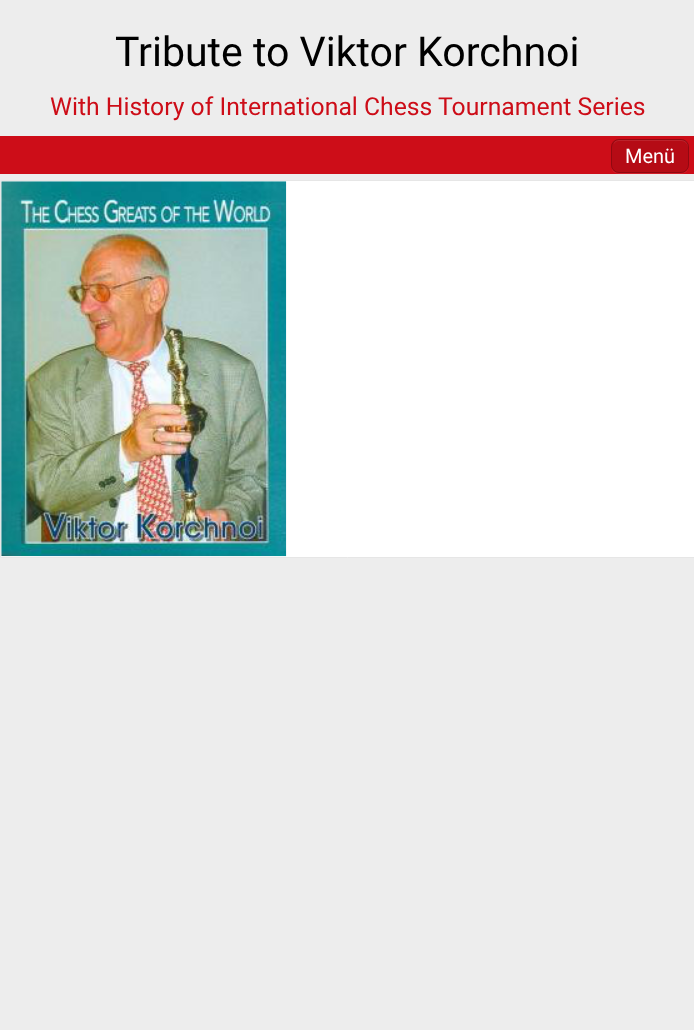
async function draw(canvas) {
	canvas.width = 694;
	canvas.height = 1030;
	const c = canvas.getContext('2d');
	c.miterLimit = 4;
	c.fontKerning = 'normal';
	async function loadImage(src) {
		const img = new Image();
		img.src = src;
		await img.decode();
		return img;
	}

	c.fillStyle = '#ededed';
	c.fillRect(0, 0, 694, 1030);
	c.font = '41.1px Roboto';
	c.fillStyle = '#000';
	c.fillText('Tribute to Viktor Korchnoi', 115, 66);
	c.font = '24.75px Roboto';
	c.fillStyle = '#cd0d18';
	c.fillText('With History of International Chess Tournament Series', 50, 115);
	c.fillRect(0, 136, 694, 38);
	c.fillStyle = '#d11f29';
	c.beginPath();
	c.moveTo(611, 146);
	c.lineTo(611, 160);
	c.bezierCurveTo(611, 175, 614, 174, 629, 174);
	c.lineTo(671, 174);
	c.bezierCurveTo(686, 174, 689, 175, 689, 160);
	c.lineTo(689, 146);
	c.lineTo(689, 159);
	c.bezierCurveTo(689, 164, 689, 171, 683, 172);
	c.lineTo(617, 172);
	c.bezierCurveTo(611, 171, 611, 164, 611, 159);
	c.closePath();
	c.fill();
	c.fillStyle = '#b50b15';
	c.beginPath();
	c.roundRect(611, 139, 78, 34, 8);
	c.fill();
	c.fillStyle = '#bc232c';
	c.beginPath();
	c.moveTo(619, 141);
	c.lineTo(681, 141);
	c.bezierCurveTo(685, 141, 688, 144, 688, 148);
	c.lineTo(688, 146);
	c.bezierCurveTo(688, 143, 685, 140, 682, 140);
	c.lineTo(619, 140);
	c.bezierCurveTo(617, 140, 614, 141, 614, 144);
	c.bezierCurveTo(615, 142, 617, 141, 619, 141);
	c.closePath();
	c.fill();
	c.beginPath();
	c.roundRect(611.5, 139.5, 77, 33, 7.5);
	c.strokeStyle = '#00000033';
	c.stroke();
	c.font = '20px Roboto';
	c.fillStyle = '#fff';
	c.fillText('Menü', 625, 163);
	c.beginPath();
	c.rect(0.5, 180.5, 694, 377);
	c.fill();
	c.strokeStyle = '#e6e6e6';
	c.stroke();
	c.drawImage(await loadImage('img1.png'), 1, 181, 286, 376);
}

draw(document.querySelector('canvas'));
